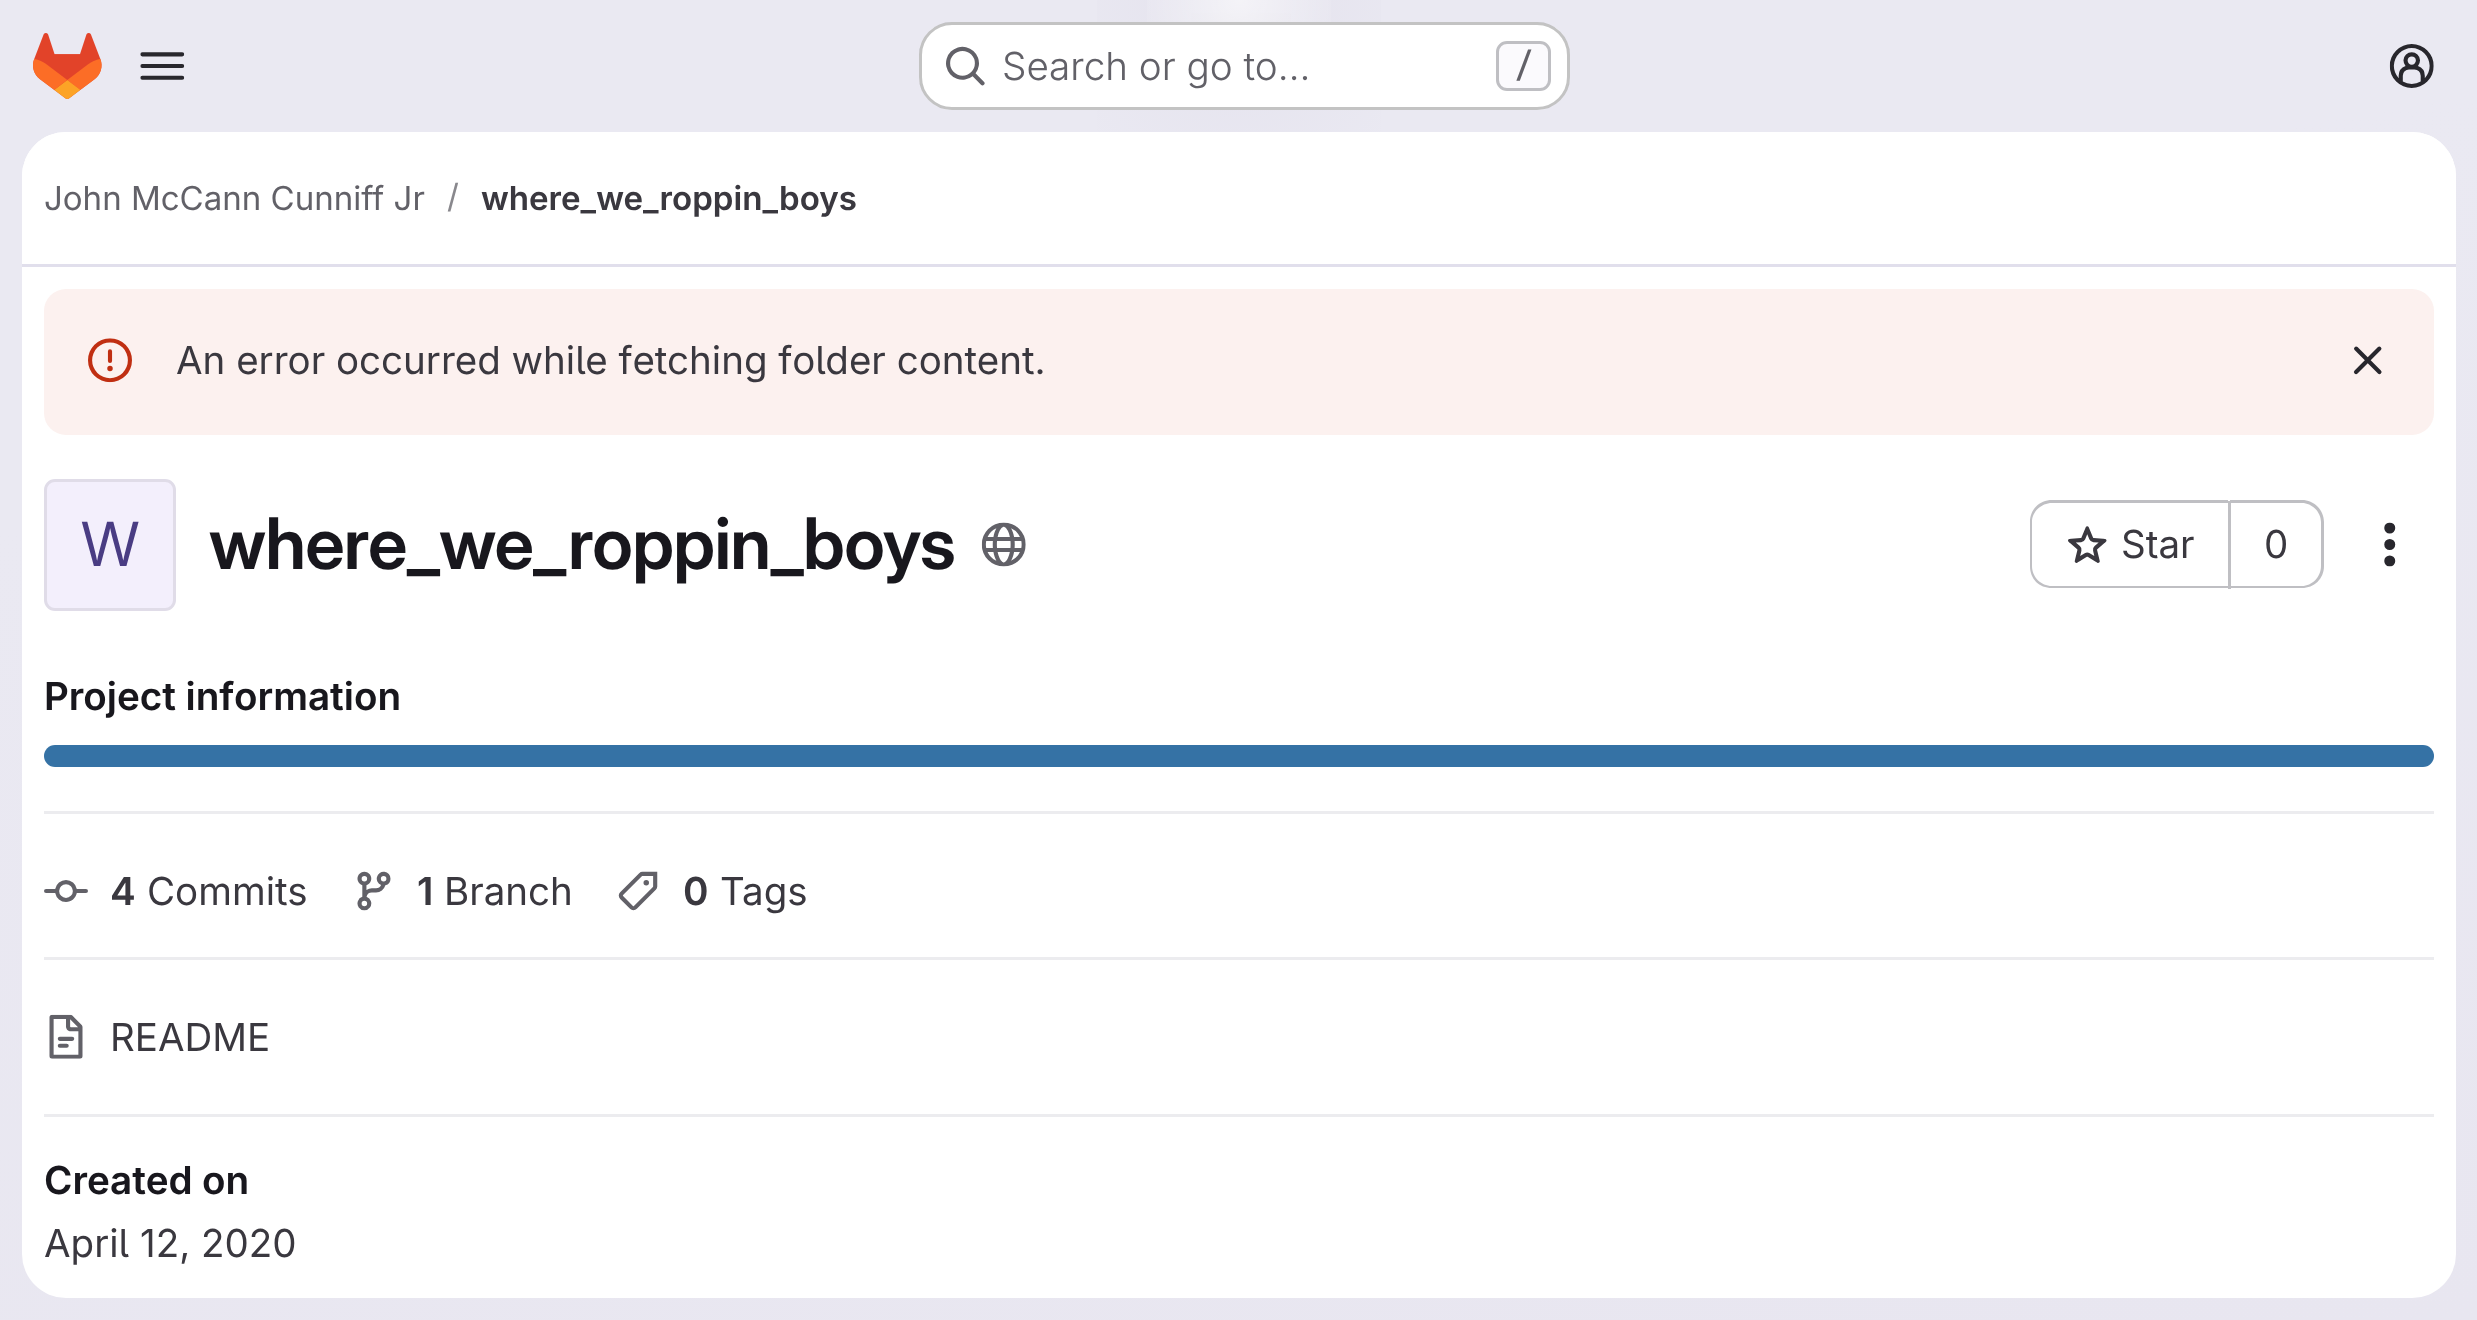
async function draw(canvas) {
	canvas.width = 2477;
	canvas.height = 1320;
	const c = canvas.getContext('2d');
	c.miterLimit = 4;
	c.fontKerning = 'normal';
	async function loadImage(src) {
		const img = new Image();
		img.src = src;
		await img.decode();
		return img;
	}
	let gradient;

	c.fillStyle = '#fff';
	c.fillRect(0, 0, 2477, 1320);
	gradient = c.createLinearGradient(1389, 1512, 1089, -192);
	gradient.addColorStop(0, '#e8e6f0');
	gradient.addColorStop(0.7, '#eae9f2');
	c.fillStyle = gradient;
	c.fillRect(0, 0, 2477, 1320);
	gradient = c.createRadialGradient(1239, 0, 0, 1239, 0, 1239);
	gradient.addColorStop(0, '#e4e2ed');
	gradient.addColorStop(0.16, '#e4e2ed00');
	c.fillStyle = gradient;
	c.beginPath();
	c.rect(1097, 0, 284, 132);
	c.save();
	c.clip();
	c.scale(1, 1320 / 1239);
	c.fillRect(0, 0, 2477, 1239);
	c.restore();
	gradient = c.createRadialGradient(1239, 0, 0, 1239, 0, 1239);
	gradient.addColorStop(0, '#e4e2ec');
	gradient.addColorStop(0.11, '#e4e2ec00');
	c.fillStyle = gradient;
	c.beginPath();
	c.rect(1191, 13, 100, 45);
	c.save();
	c.clip();
	c.scale(1, 1320 / 1239);
	c.fillRect(0, 0, 2477, 1239);
	c.restore();
	gradient = c.createRadialGradient(1239, 0, 0, 1239, 0, 1810);
	gradient.addColorStop(0, '#ffffff99');
	gradient.addColorStop(0.06, '#ffffff00');
	c.fillStyle = gradient;
	c.fillRect(1147, 0, 184, 22);
	c.drawImage(await loadImage('img1.png'), 33, 33, 69, 66);
	c.drawImage(await loadImage('img2.png'), 140, 52, 45, 28);
	c.fillStyle = '#fff';
	c.beginPath();
	c.roundRect(919, 22, 651, 88, 33);
	c.fill();
	c.beginPath();
	c.roundRect(920.5, 23.5, 648, 85, 31.5);
	c.strokeStyle = '#0505063d';
	c.lineWidth = 3;
	c.stroke();
	c.drawImage(await loadImage('img3.png'), 946, 46, 39, 40);
	c.font = '300 38.5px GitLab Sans';
	c.fillStyle = '#626168';
	c.fillText('Search or go to…', 1002, 80);
	c.fillStyle = '#fbfafd';
	c.beginPath();
	c.roundRect(1497.5, 42.5, 52, 47, 9.5);
	c.fill();
	c.strokeStyle = '#bfbfc3';
	c.stroke();
	c.font = '500 33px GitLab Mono';
	c.fillStyle = '#626168';
	c.fillText('/', 1514, 77);
	c.drawImage(await loadImage('img4.png'), 2389, 44, 45, 44);
	c.fillStyle = '#fff';
	c.beginPath();
	c.roundRect(22, 132, 2434, 1166, 44);
	c.fill();
	c.beginPath();
	c.roundRect(22, 132, 2434, 135, [44, 44, 0, 0]);
	c.fill();
	c.fillStyle = '#e1dfec';
	c.fillRect(22, 264, 2434, 3);
	c.font = '33px GitLab Sans';
	c.fillStyle = '#626168';
	c.fillText('John McCann Cunniff Jr', 44, 210);
	c.fillStyle = '#89888d';
	c.fillText('/', 447, 208);
	c.font = '600 33px "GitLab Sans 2"';
	c.fillStyle = '#3a383f';
	c.fillText('where_we_roppin_boys', 481, 210);
	c.fillStyle = '#fcf1ef';
	c.beginPath();
	c.roundRect(44, 289, 2390, 146, 22);
	c.fill();
	c.drawImage(await loadImage('img5.png'), 88, 338, 44, 45);
	c.font = '38.5px GitLab Sans';
	c.fillStyle = '#3a383f';
	c.fillText('An error occurred while fetching folder content.', 176, 374);
	c.drawImage(await loadImage('img6.png'), 2353, 346, 29, 29);
	c.fillStyle = '#f3effc';
	c.beginPath();
	c.roundRect(44, 479, 132, 132, 11);
	c.fill();
	c.beginPath();
	c.roundRect(45.5, 480.5, 129, 129, 9.5);
	c.strokeStyle = '#05050614';
	c.stroke();
	c.font = '61px "GitLab Sans 2"';
	c.fillStyle = '#493c83';
	c.fillText('W', 81, 566);
	c.letterSpacing = '-0.75px';
	c.font = '600 71px GitLab Sans';
	c.fillStyle = '#18171d';
	c.fillText('where_we_roppin_boys', 209, 569);
	c.drawImage(await loadImage('img7.png'), 981, 522, 45, 45);
	c.fillStyle = '#bfbfc3';
	c.beginPath();
	c.moveTo(2052, 500);
	c.lineTo(2228, 500);
	c.lineTo(2228, 588);
	c.lineTo(2052, 588);
	c.bezierCurveTo(2039, 588, 2030, 579, 2030, 566);
	c.lineTo(2030, 522);
	c.bezierCurveTo(2030, 510, 2039, 500, 2052, 500);
	c.closePath();
	c.moveTo(2052, 503);
	c.lineTo(2228, 503);
	c.lineTo(2228, 586);
	c.lineTo(2052, 586);
	c.bezierCurveTo(2041, 586, 2032, 577, 2032, 566);
	c.lineTo(2032, 522);
	c.bezierCurveTo(2032, 512, 2041, 503, 2052, 503);
	c.closePath();
	c.fill('evenodd');
	c.drawImage(await loadImage('img8.png'), 2068, 526, 39, 37);
	c.letterSpacing = '0px';
	c.font = '38.5px GitLab Sans';
	c.fillStyle = '#3a383f';
	c.fillText('Star', 2121, 558);
	c.fillStyle = '#bfbfc3';
	c.beginPath();
	c.moveTo(2230, 500);
	c.lineTo(2302, 500);
	c.bezierCurveTo(2314, 500, 2324, 510, 2324, 522);
	c.lineTo(2324, 566);
	c.bezierCurveTo(2324, 579, 2314, 588, 2302, 588);
	c.lineTo(2230, 588);
	c.closePath();
	c.moveTo(2230, 503);
	c.lineTo(2302, 503);
	c.bezierCurveTo(2312, 503, 2321, 512, 2321, 522);
	c.lineTo(2321, 566);
	c.bezierCurveTo(2321, 577, 2312, 586, 2302, 586);
	c.lineTo(2230, 586);
	c.closePath();
	c.fill('evenodd');
	c.fillRect(2228, 501, 3, 88);
	c.fillStyle = '#3a383f';
	c.fillText('0', 2264, 558);
	c.drawImage(await loadImage('img9.png'), 2384, 522, 12, 45);
	c.fillStyle = '#ececef';
	c.fillRect(44, 811, 2390, 3);
	c.font = '600 38.5px "GitLab Sans 2"';
	c.fillStyle = '#18171d';
	c.fillText('Project information', 44, 710);
	c.fillStyle = '#3572a5';
	c.beginPath();
	c.roundRect(44, 745, 2390, 22, 11);
	c.fill();
	c.fillStyle = '#ececef';
	c.fillRect(44, 957, 2390, 3);
	c.drawImage(await loadImage('img10.png'), 44, 880, 44, 22);
	c.fillStyle = '#3a383f';
	c.fillText('4', 110, 905);
	c.font = '38.5px GitLab Sans';
	c.fillText('Commits', 147, 905);
	c.drawImage(await loadImage('img11.png'), 357, 871, 34, 40);
	c.font = '600 38.5px "GitLab Sans 2"';
	c.fillText('1', 417, 905);
	c.font = '38.5px GitLab Sans';
	c.fillText('Branch', 444, 905);
	c.drawImage(await loadImage('img12.png'), 618, 871, 40, 40);
	c.font = '600 38.5px "GitLab Sans 2"';
	c.fillText('0', 683, 905);
	c.font = '38.5px GitLab Sans';
	c.fillText('Tags', 720, 905);
	c.fillStyle = '#ececef';
	c.fillRect(44, 1114, 2390, 3);
	c.drawImage(await loadImage('img13.png'), 49, 1014, 34, 45);
	c.fillStyle = '#3a383f';
	c.fillText('README', 110, 1051);
	c.font = '600 38.5px "GitLab Sans 2"';
	c.fillStyle = '#18171d';
	c.fillText('Created on', 44, 1194);
	c.font = '38.5px GitLab Sans';
	c.fillStyle = '#3a383f';
	c.fillText('April 12, 2020', 44, 1257);
}

draw(document.querySelector('canvas'));
